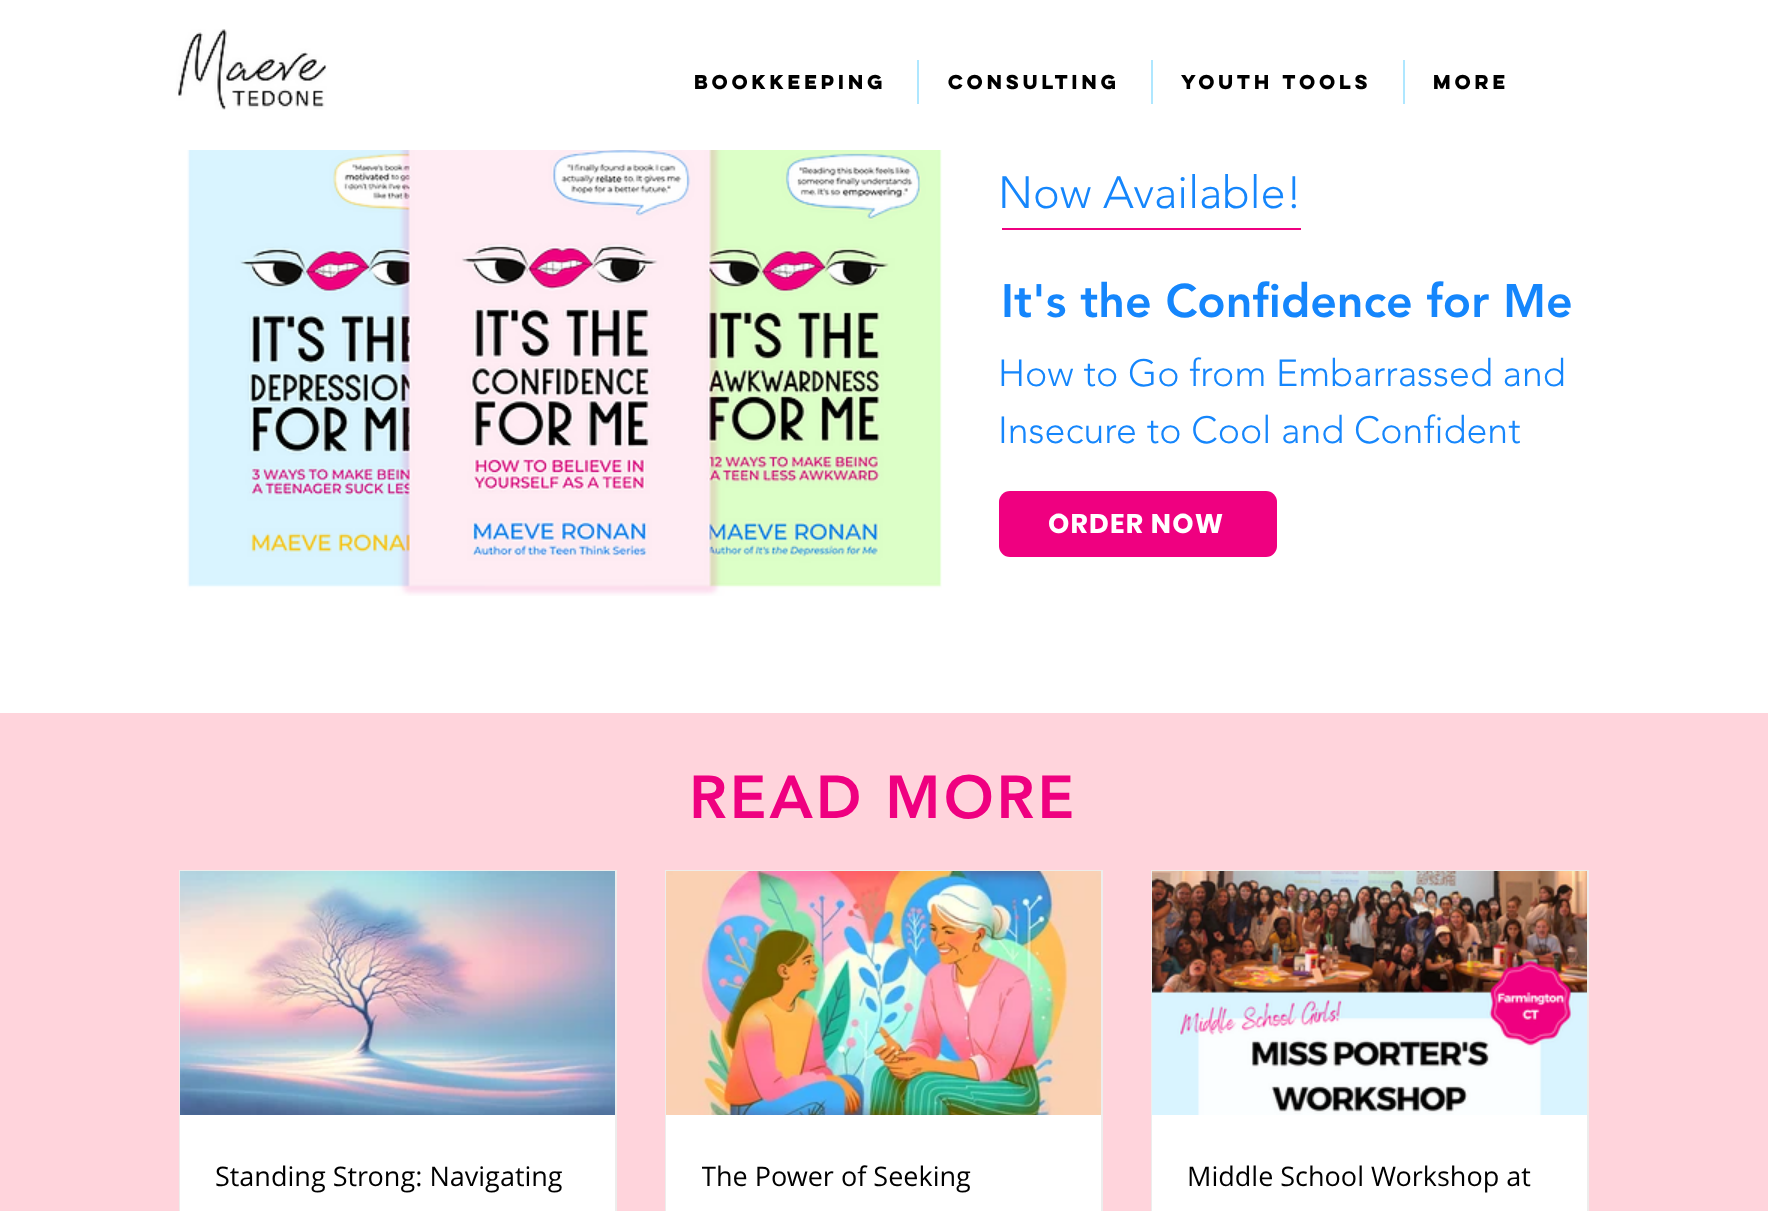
async function draw(canvas) {
	canvas.width = 1768;
	canvas.height = 1211;
	const c = canvas.getContext('2d');
	c.miterLimit = 4;
	c.fontKerning = 'normal';
	async function loadImage(src) {
		const img = new Image();
		img.src = src;
		await img.decode();
		return img;
	}

	c.fillStyle = '#fff';
	c.fillRect(0, 0, 1768, 1211);
	c.drawImage(await loadImage('img1.png'), 176, 29, 151, 81);
	c.font = 'bold 18px "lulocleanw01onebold"';
	c.fillStyle = '#000';
	c.fillText('Bookkeeping', 694, 89);
	c.fillStyle = '#afe7ff';
	c.fillRect(917, 60, 2, 44);
	c.fillStyle = '#000';
	c.fillText('Consulting', 948, 89);
	c.fillStyle = '#afe7ff';
	c.fillRect(1151, 60, 2, 44);
	c.fillStyle = '#000';
	c.fillText('Youth Tools', 1181, 89);
	c.fillStyle = '#afe7ff';
	c.fillRect(1403, 60, 2, 44);
	c.fillStyle = '#000';
	c.fillText('More', 1433, 89);
	c.drawImage(await loadImage('img2.png'), 187, 150, 755, 446);
	c.font = '300 45px "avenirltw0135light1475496"';
	c.fillStyle = '#1586fc';
	c.fillText('Now Available!', 998, 208);
	c.fillStyle = '#ef0080';
	c.fillRect(1002, 228, 299, 2);
	c.font = '900 46.5px "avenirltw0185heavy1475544"';
	c.fillStyle = '#1586fc';
	c.fillText('It\'s the Confidence for Me', 1001, 317);
	c.font = '300 37.5px "avenirltw0135light1475496"';
	c.fillText('How to Go from Embarrassed and', 998, 386);
	c.fillText('Insecure to Cool and Confident', 998, 443);
	c.fillStyle = '#ef0080';
	c.beginPath();
	c.roundRect(999, 491, 278, 66, 11);
	c.fill();
	c.letterSpacing = '1.25px';
	c.font = 'bold 27px Poppins';
	c.fillStyle = '#fff';
	c.fillText('ORDER NOW', 1048, 533);
	c.fillStyle = '#ffd4dc';
	c.fillRect(0, 713, 1768, 498);
	c.letterSpacing = '3px';
	c.font = '900 60px "avenirltw0185heavy1475544"';
	c.fillStyle = '#ef0080';
	c.fillText('READ MORE', 689, 818);
	c.strokeStyle = '#ededec';
	c.lineWidth = 2;
	c.strokeRect(180, 871, 436, 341);
	c.drawImage(await loadImage('img3.png'), 180, 871, 435, 244);
	c.fillStyle = '#fff';
	c.fillRect(180, 1115, 435, 96);
	c.letterSpacing = '0px';
	c.font = '27px Open Sans';
	c.fillStyle = '#000';
	c.fillText('Standing Strong: Navigating', 215, 1186);
	c.strokeRect(666, 871, 436, 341);
	c.drawImage(await loadImage('img4.png'), 666, 871, 435, 244);
	c.fillStyle = '#fff';
	c.fillRect(666, 1115, 435, 96);
	c.save();
	c.beginPath();
	c.rect(702, 1158, 363, 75);
	c.clip();
	c.fillStyle = '#000';
	c.fillText('The Power of Seeking', 701, 1186);
	c.restore();
	c.strokeRect(1152, 871, 436, 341);
	c.drawImage(await loadImage('img5.png'), 1152, 871, 435, 244);
	c.fillRect(1152, 1115, 435, 96);
	c.fillStyle = '#000';
	c.fillText('Middle School Workshop at', 1187, 1186);
}

draw(document.querySelector('canvas'));
